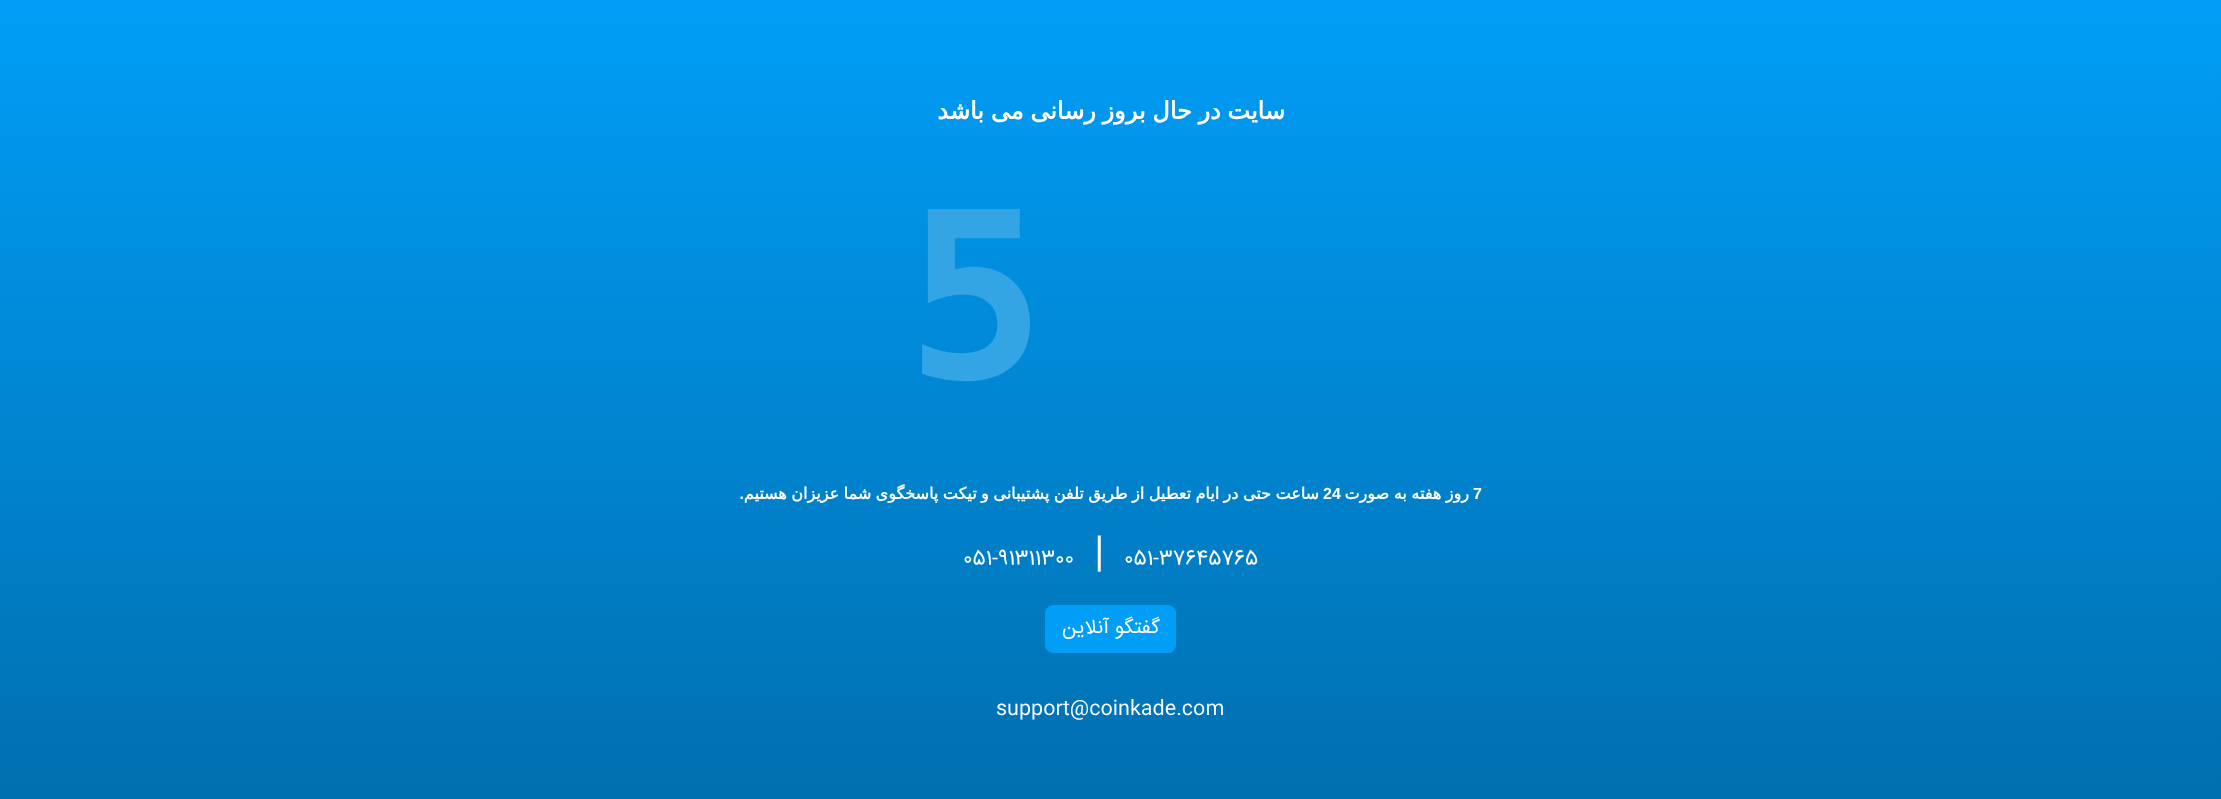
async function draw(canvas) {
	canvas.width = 2221;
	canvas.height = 799;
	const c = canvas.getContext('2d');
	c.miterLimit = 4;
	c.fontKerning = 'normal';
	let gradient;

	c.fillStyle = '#fff';
	c.fillRect(0, 0, 2221, 799);
	gradient = c.createLinearGradient(1111, 0, 1111, 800);
	gradient.addColorStop(0, '#009ef7');
	gradient.addColorStop(1, '#006faf');
	c.fillStyle = gradient;
	c.fillRect(0, 0, 2221, 799);
	c.wordSpacing = '-1px';
	c.direction = 'rtl';
	c.font = 'bold 24px DejaVu Sans';
	c.fillStyle = '#fff';
	c.fillText('سایت در حال بروز رسانی می باشد', 1285, 119);
	c.wordSpacing = '0px';
	c.direction = 'ltr';
	c.font = 'bold 232px DejaVu Sans Mono';
	c.fillStyle = '#33a4e4';
	c.fillText('5', 906, 378);
	c.font = 'bold 16px Liberation Sans';
	c.fillStyle = '#fff';
	c.fillText('7', 1473, 499);
	c.wordSpacing = '-0.5px';
	c.direction = 'rtl';
	c.font = 'bold 16px DejaVu Sans';
	c.fillText('روز هفته به صورت', 1469, 499);
	c.wordSpacing = '0px';
	c.direction = 'ltr';
	c.font = 'bold 16px Liberation Sans';
	c.fillText('24', 1323, 499);
	c.wordSpacing = '-0.6px';
	c.direction = 'rtl';
	c.font = 'bold 16px DejaVu Sans';
	c.fillText('ساعت حتی در ایام تعطیل از طریق تلفن پشتیبانی و تیکت پاسخگوی شما عزیزان هستیم', 1319, 499);
	c.wordSpacing = '0px';
	c.font = 'bold 16px Liberation Sans';
	c.fillText('.', 744, 499);
	c.direction = 'ltr';
	c.font = '20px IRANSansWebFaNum';
	c.fillText('051-37645765', 1124, 564);
	c.font = '40px IRANSansWebFaNum';
	c.fillText('|', 1094, 564);
	c.font = '20px IRANSansWebFaNum';
	c.fillText('051-91311300', 963, 564);
	c.fillStyle = '#009ef7';
	c.beginPath();
	c.roundRect(1045.5, 605.5, 130, 47, 7.5);
	c.fill();
	c.strokeStyle = '#009ef7';
	c.stroke();
	c.direction = 'rtl';
	c.fillStyle = '#fff';
	c.fillText('گفتگو آنلاین', 1160, 633);
	c.direction = 'ltr';
	c.fillText('support@coinkade.com', 996, 714);
}

draw(document.querySelector('canvas'));
